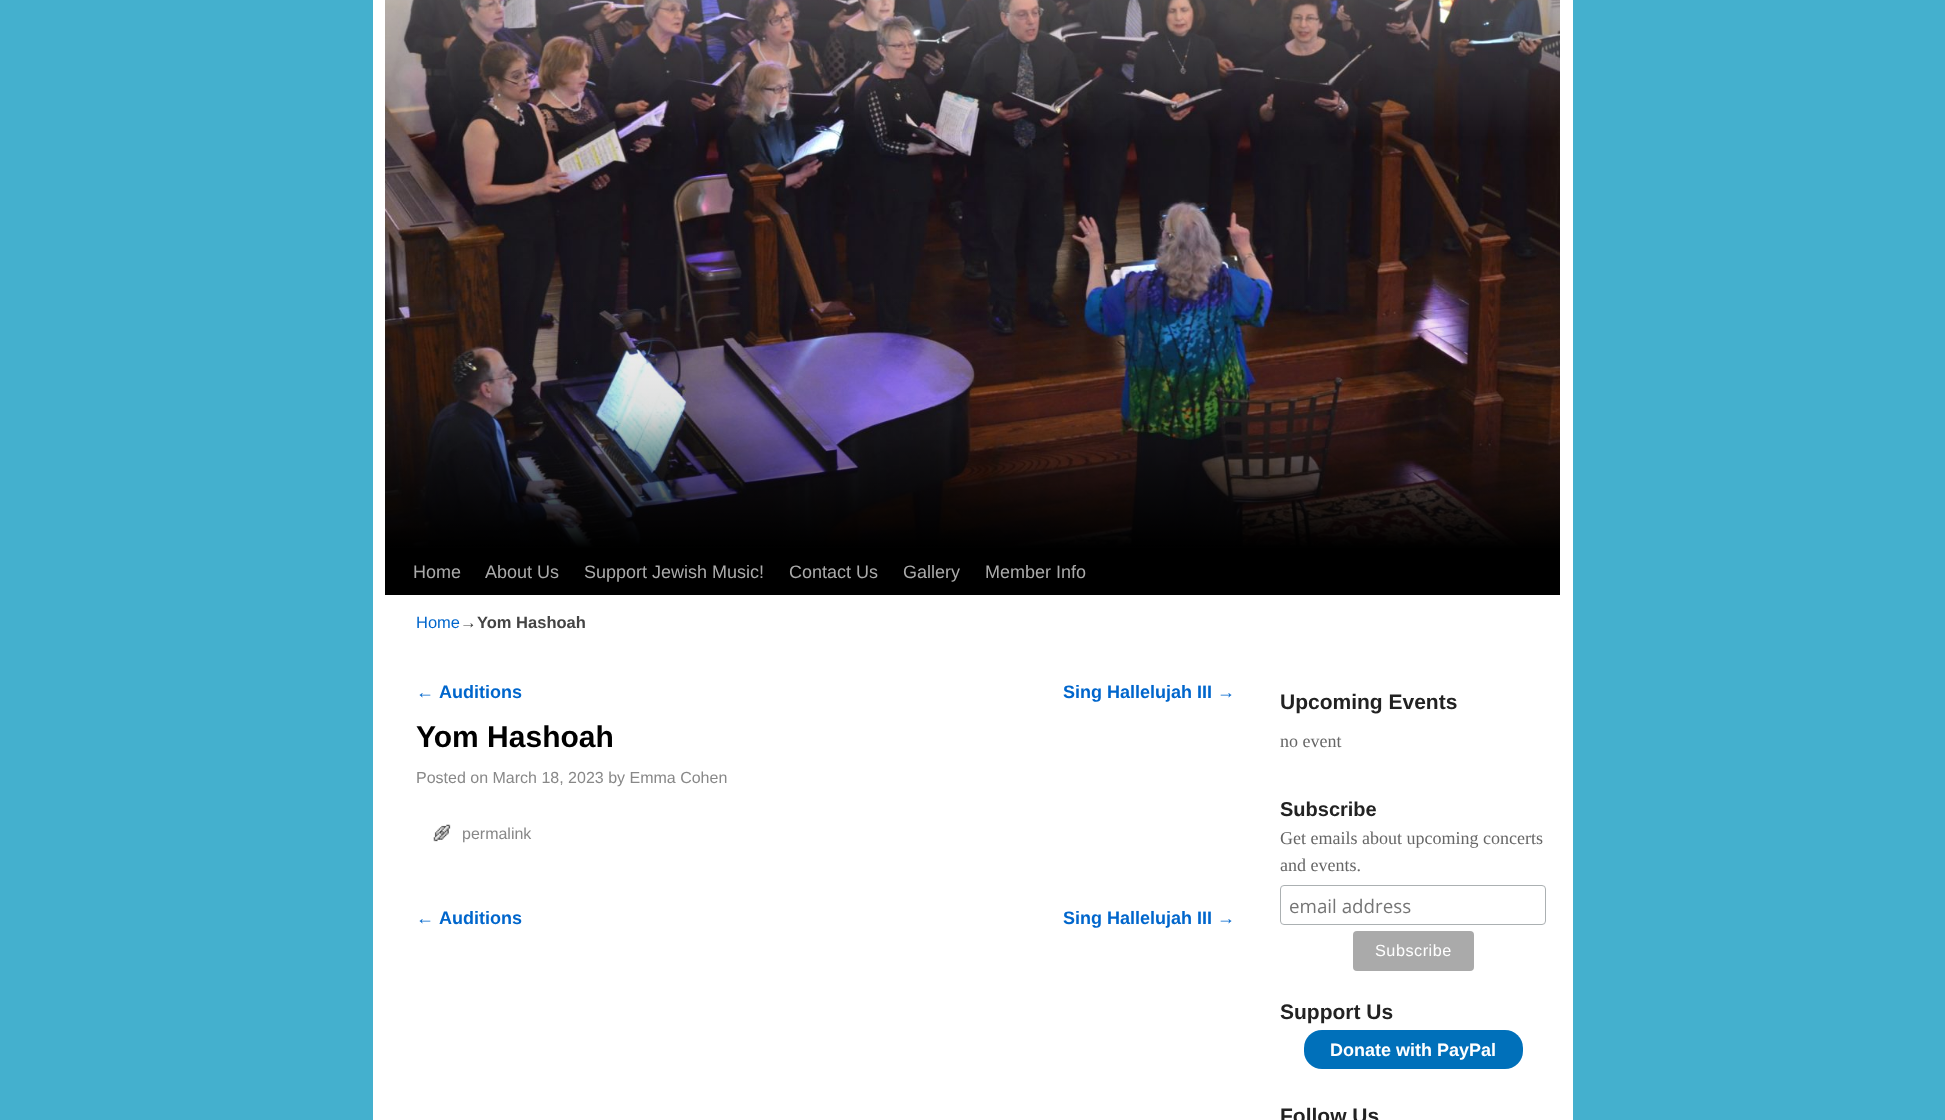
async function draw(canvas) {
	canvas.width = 1945;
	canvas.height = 1120;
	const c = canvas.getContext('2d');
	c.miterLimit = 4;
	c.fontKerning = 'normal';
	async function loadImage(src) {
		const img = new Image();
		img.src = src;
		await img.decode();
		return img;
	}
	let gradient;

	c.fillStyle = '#44b0ce';
	c.fillRect(0, 0, 1945, 1120);
	c.fillStyle = '#fff';
	c.fillRect(373, 0, 1200, 1120);
	c.drawImage(await loadImage('img1.png'), 385, 0, 1175, 547);
	gradient = c.createLinearGradient(973, -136, 973, 548);
	gradient.addColorStop(0, '#ffffffab');
	gradient.addColorStop(0.2, '#ffffff33');
	gradient.addColorStop(0.4, '#ffffff00');
	gradient.addColorStop(0.6, '#00000000');
	gradient.addColorStop(0.8, '#00000021');
	gradient.addColorStop(1, '#000');
	c.fillStyle = gradient;
	c.fillRect(385, 0, 1175, 548);
	c.fillStyle = '#000';
	c.fillRect(385, 548, 1175, 47);
	c.font = '18px Liberation Sans';
	c.fillStyle = '#aaa';
	for (const [text, x, y] of [
		['Home', 413, 578],
		['About Us', 485, 578],
		['Support Jewish Music!', 584, 578],
		['Contact Us', 789, 578],
		['Gallery', 903, 578],
		['Member Info', 985, 578],
	]) {
		c.fillText(text, x, y);
	}
	c.font = '16.5px Liberation Sans';
	c.fillStyle = '#06c';
	c.fillText('Home', 416, 628);
	c.fillStyle = '#444';
	c.fillText('→', 460, 628);
	c.font = 'bold 16.5px Liberation Sans';
	c.fillText('Yom Hashoah', 477, 628);
	c.font = '18px Liberation Sans';
	c.fillStyle = '#06c';
	c.fillText('←', 416, 698);
	c.font = 'bold 18px Liberation Sans';
	c.fillText('Auditions', 439, 698);
	c.fillText('Sing Hallelujah III', 1063, 698);
	c.font = '18px Liberation Sans';
	c.fillText('→', 1217, 698);
	c.font = 'bold 30px Liberation Sans';
	c.fillStyle = '#000';
	c.fillText('Yom Hashoah', 416, 747);
	c.font = '16px Liberation Sans';
	c.fillStyle = '#888';
	c.fillText('Posted on March 18, 2023 by Emma Cohen', 416, 783);
	c.drawImage(await loadImage('img2.png'), 433, 824, 18, 18);
	c.fillText('permalink', 462, 839);
	c.font = '18px Liberation Sans';
	c.fillStyle = '#06c';
	c.fillText('←', 416, 924);
	c.font = 'bold 18px Liberation Sans';
	c.fillText('Auditions', 439, 924);
	c.fillText('Sing Hallelujah III', 1063, 924);
	c.font = '18px Liberation Sans';
	c.fillText('→', 1217, 924);
	c.font = 'bold 21px Liberation Sans';
	c.fillStyle = '#222';
	c.fillText('Upcoming Events', 1280, 709);
	c.font = '18px Liberation Serif';
	c.fillStyle = '#666';
	c.fillText('no event', 1280, 747);
	c.font = 'bold 20px Liberation Sans';
	c.fillStyle = '#222';
	c.fillText('Subscribe', 1280, 816);
	c.font = '18px Liberation Serif';
	c.fillStyle = '#666';
	c.fillText('Get emails about upcoming concerts', 1280, 844);
	c.fillText('and events.', 1280, 871);
	c.beginPath();
	c.roundRect(1280.5, 885.5, 265, 39, 3.5);
	c.strokeStyle = '#abb0b2';
	c.stroke();
	c.font = '18.75px Open Sans';
	c.fillStyle = '#757575';
	c.fillText('email address', 1289, 913);
	c.fillStyle = '#aaa';
	c.beginPath();
	c.roundRect(1353, 931, 121, 40, 4);
	c.fill();
	c.letterSpacing = '0.5px';
	c.font = '16.25px Liberation Sans';
	c.fillStyle = '#fff';
	c.fillText('Subscribe', 1375, 956);
	c.letterSpacing = '0px';
	c.font = 'bold 21px Liberation Sans';
	c.fillStyle = '#222';
	c.fillText('Support Us', 1280, 1019);
	c.fillStyle = '#0070ba';
	c.beginPath();
	c.roundRect(1304, 1030, 219, 39, 18);
	c.fill();
	c.font = 'bold 18px Liberation Sans';
	c.fillStyle = '#fff';
	c.fillText('Donate with PayPal', 1330, 1056);
	c.font = 'bold 21px Liberation Sans';
	c.fillStyle = '#222';
	c.fillText('Follow Us', 1280, 1123);
}

draw(document.querySelector('canvas'));
